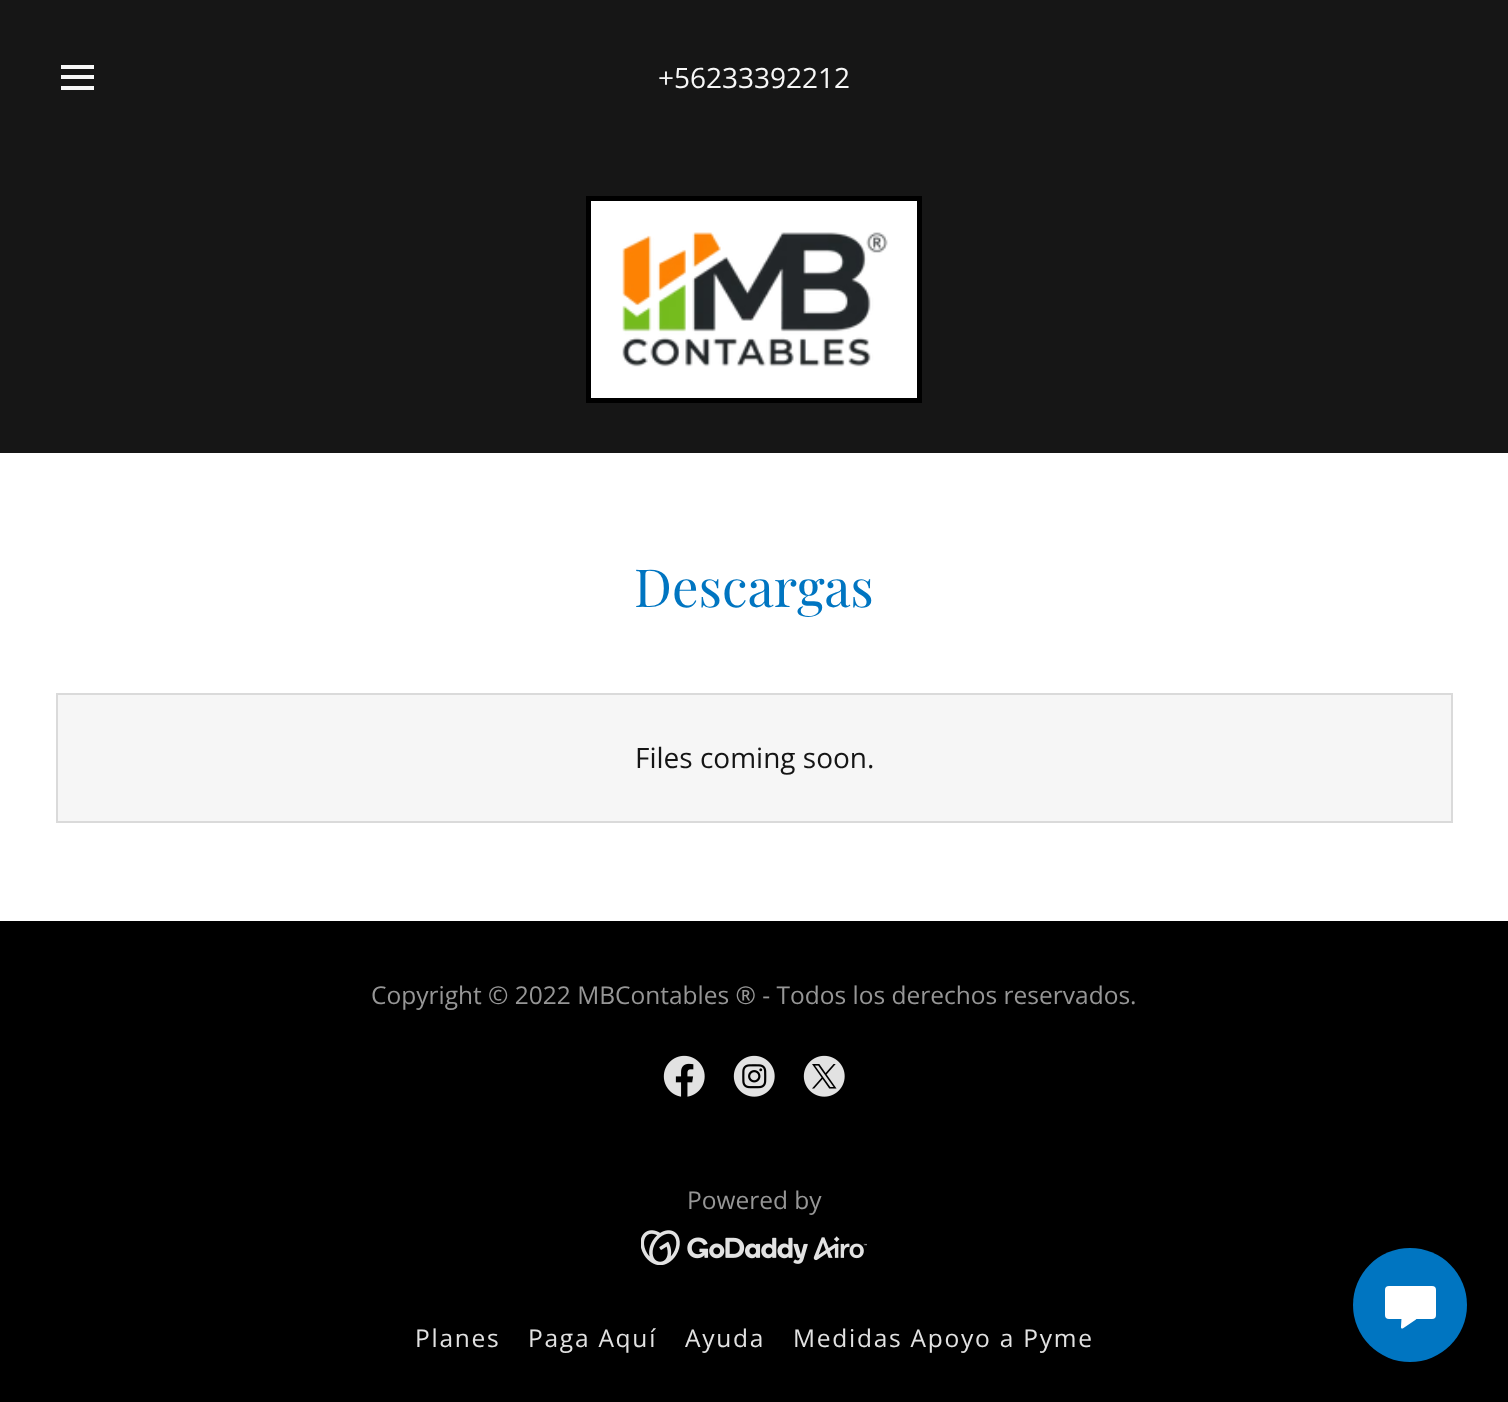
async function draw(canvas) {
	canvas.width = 1508;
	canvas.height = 1402;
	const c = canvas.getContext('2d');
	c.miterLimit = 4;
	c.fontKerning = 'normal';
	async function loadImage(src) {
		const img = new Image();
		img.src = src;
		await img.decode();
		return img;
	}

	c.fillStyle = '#000';
	c.fillRect(0, 0, 1508, 1402);
	for (const [x, y, w, h, color] of [
		[0, 0, 1508, 453, '#161616'],
		[61, 65, 33, 4, '#f7f7f7'],
		[61, 75, 33, 4, '#f7f7f7'],
		[61, 86, 33, 4, '#f7f7f7'],
	]) {
		c.fillStyle = color;
		c.fillRect(x, y, w, h);
	}
	c.font = '28px Open Sans';
	c.fillText('+56233392212', 658, 88);
	c.fillStyle = '#fff';
	c.beginPath();
	c.rect(588.5, 198.5, 331, 202);
	c.fill();
	c.strokeStyle = '#000';
	c.lineWidth = 5;
	c.stroke();
	c.drawImage(await loadImage('img1.png'), 622, 232, 266, 135);
	c.fillRect(0, 453, 1508, 468);
	c.font = '52.5px Playfair Display';
	c.fillStyle = '#0075c1';
	c.fillText('Descargas', 634, 607);
	c.fillStyle = '#f6f6f6';
	c.beginPath();
	c.rect(57, 694, 1395, 128);
	c.fill();
	c.strokeStyle = '#dadada';
	c.lineWidth = 2;
	c.stroke();
	c.font = '28px Open Sans';
	c.fillStyle = '#151515';
	c.fillText('Files coming soon.', 635, 768);
	c.font = '24.5px Open Sans';
	c.fillStyle = '#969696';
	c.fillText('Copyright © 2022 MBContables ® - Todos los derechos reservados.', 371, 1004);
	c.drawImage(await loadImage('img2.png'), 663, 1055, 42, 42);
	c.drawImage(await loadImage('img3.png'), 733, 1055, 42, 42);
	c.drawImage(await loadImage('img4.png'), 803, 1055, 42, 42);
	c.fillText('Powered by', 687, 1209);
	c.drawImage(await loadImage('img5.png'), 641, 1230, 226, 35);
	c.letterSpacing = '1.75px';
	c.fillStyle = '#e2e2e2';
	for (const [text, x, y] of [
		['Planes', 415, 1347],
		['Paga Aquí', 528, 1347],
		['Ayuda', 685, 1347],
		['Medidas Apoyo a Pyme', 793, 1347],
	]) {
		c.fillText(text, x, y);
	}
	c.fillStyle = '#0075c1';
	c.beginPath();
	c.arc(1410, 1305, 57, 0, 2 * Math.PI);
	c.fill();
	c.fillStyle = '#fff';
	c.beginPath();
	c.roundRect(1385, 1286, 51, 33, 4);
	c.fill();
	c.beginPath();
	c.moveTo(1401, 1326.5);
	c.lineTo(1401.5, 1318);
	c.bezierCurveTo(1401.5, 1317, 1402.5, 1316, 1403.5, 1316);
	c.lineTo(1415, 1316);
	c.bezierCurveTo(1416.5, 1316, 1417.5, 1318.5, 1416, 1319.5);
	c.lineTo(1403.5, 1328);
	c.bezierCurveTo(1403, 1328.5, 1402.5, 1328.5, 1401.5, 1328.5);
	c.bezierCurveTo(1401, 1328, 1401, 1327.5, 1401, 1326.5);
	c.closePath();
	c.fill();
}

draw(document.querySelector('canvas'));
